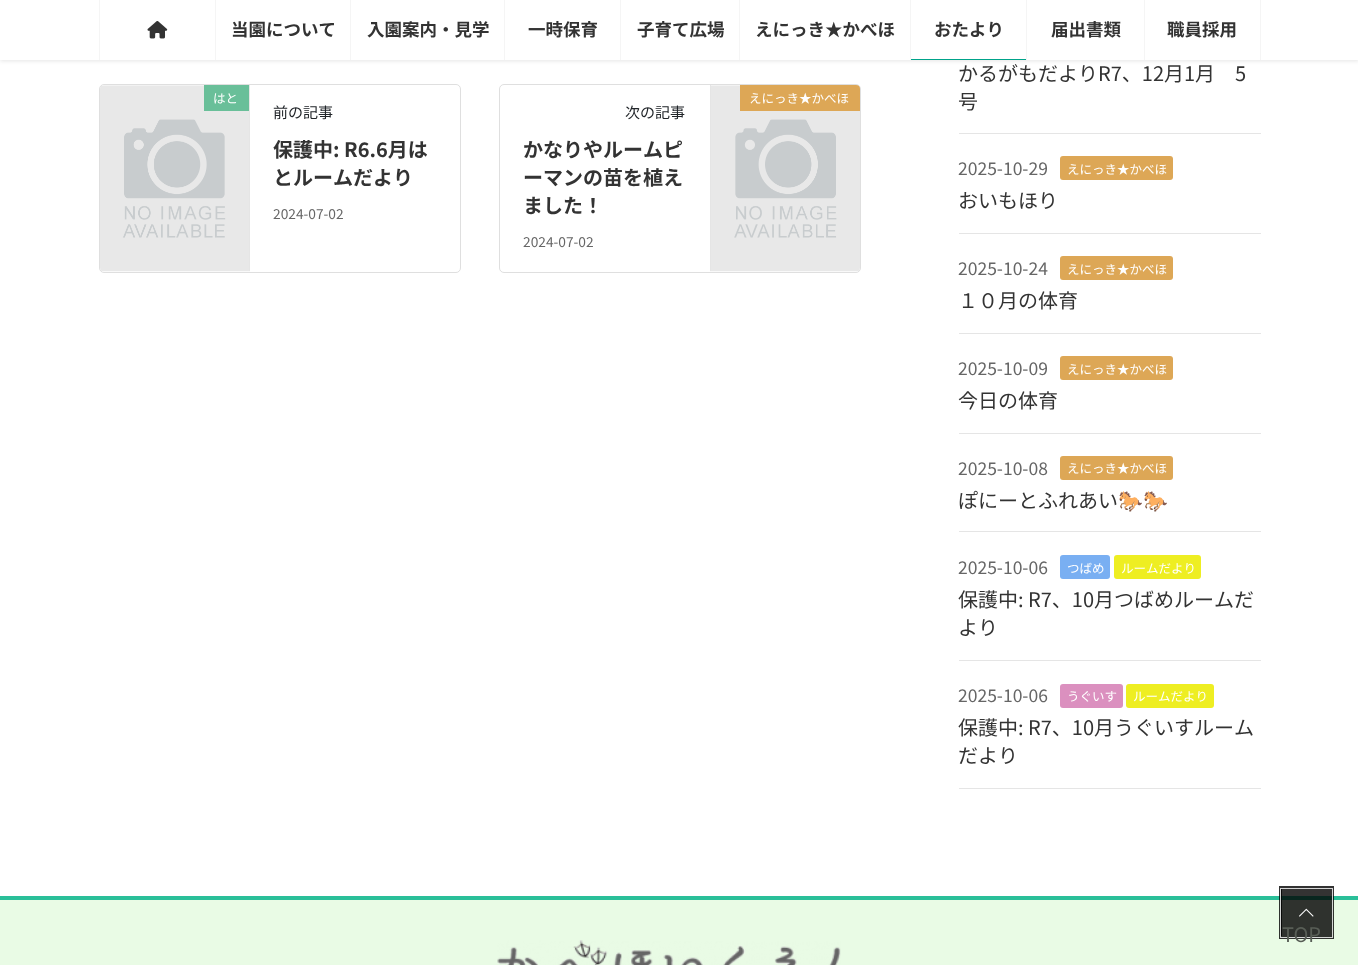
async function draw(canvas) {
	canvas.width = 1358;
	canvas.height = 965;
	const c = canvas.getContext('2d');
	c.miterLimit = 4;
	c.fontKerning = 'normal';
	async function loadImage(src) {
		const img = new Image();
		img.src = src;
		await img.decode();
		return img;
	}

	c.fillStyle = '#fff';
	c.fillRect(0, 0, 1358, 965);
	c.fillStyle = '#0000001a';
	c.filter = 'blur(2px)';
	c.beginPath();
	c.rect(0, 1, 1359, 60);
	c.fill();
	c.filter = 'none';
	c.fillStyle = '#fff';
	c.fillRect(0, 0, 1358, 60);
	c.fillStyle = '#f5f5f5';
	c.fillRect(99, 0, 1, 60);
	c.drawImage(await loadImage('img1.png'), 147, 21, 21, 18);
	c.fillRect(215, 0, 1, 60);
	c.font = 'bold 17.5px Noto Sans JP';
	c.fillStyle = '#333';
	c.fillText('当園について', 231, 36);
	c.fillStyle = '#f5f5f5';
	c.fillRect(350, 0, 1, 60);
	c.fillStyle = '#333';
	c.fillText('入園案内・見学', 367, 36);
	c.fillStyle = '#f5f5f5';
	c.fillRect(504, 0, 1, 60);
	c.fillStyle = '#333';
	c.fillText('一時保育', 528, 36);
	c.fillStyle = '#f5f5f5';
	c.fillRect(620, 0, 1, 60);
	c.fillStyle = '#333';
	c.fillText('子育て広場', 637, 36);
	c.fillStyle = '#f5f5f5';
	c.fillRect(739, 0, 1, 60);
	c.fillStyle = '#333';
	c.fillText('えにっき★かべほ', 755, 36);
	c.fillStyle = '#f5f5f5';
	c.fillRect(910, 0, 1, 60);
	c.fillStyle = '#333';
	c.fillText('おたより', 934, 36);
	c.fillStyle = '#00a38a';
	c.fillRect(911, 59, 115, 1);
	c.fillStyle = '#f5f5f5';
	c.fillRect(1026, 0, 1, 60);
	c.fillStyle = '#333';
	c.fillText('届出書類', 1051, 36);
	c.fillStyle = '#f5f5f5';
	c.fillRect(1260, 0, 1, 60);
	c.fillRect(1144, 0, 1, 60);
	c.fillStyle = '#333';
	c.fillText('職員採用', 1167, 36);
	c.beginPath();
	c.roundRect(99.5, 84.5, 361, 188, 4.5);
	c.strokeStyle = '#dfdfdf';
	c.stroke();
	c.drawImage(await loadImage('img2.png'), 100, 85, 150, 187);
	c.fillStyle = '#e5e5e5';
	c.fillRect(249, 85, 1, 186);
	c.fillStyle = '#69bf99';
	c.fillRect(204, 85, 45, 26);
	c.font = '12.5px Noto Sans JP';
	c.fillStyle = '#fff';
	c.fillText('はと', 213, 103);
	c.font = '15px Noto Sans JP';
	c.fillStyle = '#212529';
	c.fillText('前の記事', 273, 118);
	c.font = 'bold 20px Noto Sans JP';
	c.fillStyle = '#333';
	c.fillText('保護中: R6.6月は', 273, 157);
	c.fillText('とルームだより', 273, 185);
	c.font = '13.75px Noto Sans JP';
	c.fillStyle = '#666';
	c.fillText('2024-07-02', 273, 219);
	c.beginPath();
	c.roundRect(499.5, 84.5, 361, 188, 4.5);
	c.stroke();
	c.drawImage(await loadImage('img3.png'), 710, 85, 150, 187);
	c.fillStyle = '#e5e5e5';
	c.fillRect(710, 85, 1, 186);
	c.fillStyle = '#dda756';
	c.beginPath();
	c.roundRect(740, 85, 120, 26, [0, 4, 0, 0]);
	c.fill();
	c.font = '12.5px Noto Sans JP';
	c.fillStyle = '#fff';
	c.fillText('えにっき★かべほ', 749, 103);
	c.font = '15px Noto Sans JP';
	c.fillStyle = '#212529';
	c.fillText('次の記事', 625, 118);
	c.font = 'bold 20px Noto Sans JP';
	c.fillStyle = '#333';
	for (const [text, x, y] of [
		['かなりやルームピ', 523, 157],
		['ーマンの苗を植え', 523, 185],
		['ました！', 523, 213],
	]) {
		c.fillText(text, x, y);
	}
	c.font = '13.75px Noto Sans JP';
	c.fillStyle = '#666';
	c.fillText('2024-07-02', 523, 247);
	c.fillStyle = '#e5e5e5';
	c.fillRect(959, 133, 302, 1);
	c.font = '20px Noto Sans JP';
	c.fillStyle = '#333';
	c.fillText('かるがもだよりR7、12月1月　5', 958, 81);
	c.fillText('号', 958, 109);
	c.fillStyle = '#e5e5e5';
	c.fillRect(959, 233, 302, 1);
	c.font = '17.5px Noto Sans JP';
	c.fillStyle = '#666';
	c.fillText('2025-10-29', 958, 175);
	c.fillStyle = '#dda756';
	c.beginPath();
	c.roundRect(1060, 156, 113, 24, 3);
	c.fill();
	c.font = '12.5px Noto Sans JP';
	c.fillStyle = '#fff';
	c.fillText('えにっき★かべほ', 1067, 174);
	c.font = '20px Noto Sans JP';
	c.fillStyle = '#333';
	c.fillText('おいもほり', 958, 208);
	c.fillStyle = '#e5e5e5';
	c.fillRect(959, 333, 302, 1);
	c.font = '17.5px Noto Sans JP';
	c.fillStyle = '#666';
	c.fillText('2025-10-24', 958, 275);
	c.fillStyle = '#dda756';
	c.beginPath();
	c.roundRect(1060, 256, 113, 24, 3);
	c.fill();
	c.font = '12.5px Noto Sans JP';
	c.fillStyle = '#fff';
	c.fillText('えにっき★かべほ', 1067, 274);
	c.font = '20px Noto Sans JP';
	c.fillStyle = '#333';
	c.fillText('１０月の体育', 958, 308);
	c.fillStyle = '#e5e5e5';
	c.fillRect(959, 433, 302, 1);
	c.font = '17.5px Noto Sans JP';
	c.fillStyle = '#666';
	c.fillText('2025-10-09', 958, 375);
	c.fillStyle = '#dda756';
	c.beginPath();
	c.roundRect(1060, 356, 113, 24, 3);
	c.fill();
	c.font = '12.5px Noto Sans JP';
	c.fillStyle = '#fff';
	c.fillText('えにっき★かべほ', 1067, 374);
	c.font = '20px Noto Sans JP';
	c.fillStyle = '#333';
	c.fillText('今日の体育', 958, 408);
	c.fillStyle = '#e5e5e5';
	c.fillRect(959, 531, 302, 1);
	c.font = '17.5px Noto Sans JP';
	c.fillStyle = '#666';
	c.fillText('2025-10-08', 958, 475);
	c.fillStyle = '#dda756';
	c.beginPath();
	c.roundRect(1060, 456, 113, 24, 3);
	c.fill();
	c.font = '12.5px Noto Sans JP';
	c.fillStyle = '#fff';
	c.fillText('えにっき★かべほ', 1067, 473);
	c.font = '20px Noto Sans JP';
	c.fillStyle = '#333';
	c.fillText('ぽにーとふれあい', 958, 508);
	c.font = '20px Noto Color Emoji';
	c.fillText('🐎🐎', 1118, 508);
	c.fillStyle = '#e5e5e5';
	c.fillRect(959, 660, 302, 1);
	c.font = '17.5px Noto Sans JP';
	c.fillStyle = '#666';
	c.fillText('2025-10-06', 958, 574);
	c.fillStyle = '#79aff2';
	c.beginPath();
	c.roundRect(1060, 555, 50, 24, 3);
	c.fill();
	c.font = '12.5px Noto Sans JP';
	c.fillStyle = '#fff';
	c.fillText('つばめ', 1067, 573);
	c.fillStyle = '#ee2';
	c.beginPath();
	c.roundRect(1114, 555, 87, 24, 3);
	c.fill();
	c.fillStyle = '#fff';
	c.fillText('ルームだより', 1121, 573);
	c.font = '20px Noto Sans JP';
	c.fillStyle = '#333';
	c.fillText('保護中: R7、10月つばめルームだ', 958, 607);
	c.fillText('より', 958, 635);
	c.fillStyle = '#e5e5e5';
	c.fillRect(959, 788, 302, 1);
	c.font = '17.5px Noto Sans JP';
	c.fillStyle = '#666';
	c.fillText('2025-10-06', 958, 702);
	c.fillStyle = '#db90bf';
	c.beginPath();
	c.roundRect(1060, 684, 63, 24, 3);
	c.fill();
	c.font = '12.5px Noto Sans JP';
	c.fillStyle = '#fff';
	c.fillText('うぐいす', 1067, 701);
	c.fillStyle = '#ee2';
	c.beginPath();
	c.roundRect(1126, 684, 88, 24, 3);
	c.fill();
	c.fillStyle = '#fff';
	c.fillText('ルームだより', 1133, 701);
	c.font = '20px Noto Sans JP';
	c.fillStyle = '#333';
	c.fillText('保護中: R7、10月うぐいすルーム', 958, 735);
	c.fillText('だより', 958, 763);
	c.fillStyle = '#e9fbe5';
	c.fillRect(0, 900, 1358, 65);
	c.fillStyle = '#2abf99';
	c.fillRect(0, 896, 1358, 4);
	c.drawImage(await loadImage('img4.png'), 497, 940, 344, 25);
	c.strokeStyle = '#000000cc';
	c.lineWidth = 3;
	c.strokeRect(1280.5, 887.5, 52, 50);
	c.strokeStyle = '#ffffffcc';
	c.lineWidth = 1;
	c.strokeRect(1280.5, 888.5, 52, 49);
	c.fillStyle = '#000000cc';
	c.fillRect(1281, 889, 50, 47);
	c.drawImage(await loadImage('img5.png'), 1299, 908, 15, 9);
	c.fillStyle = '#585e56';
	c.fillText('TOP', 1282, 942);
}

draw(document.querySelector('canvas'));
